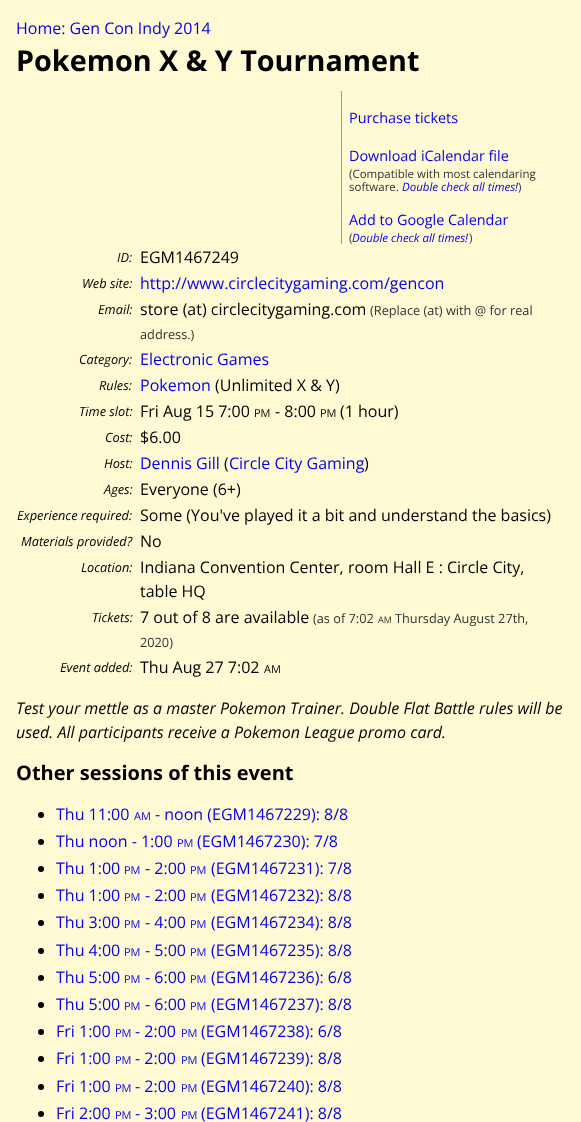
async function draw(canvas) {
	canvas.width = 581;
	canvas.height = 1122;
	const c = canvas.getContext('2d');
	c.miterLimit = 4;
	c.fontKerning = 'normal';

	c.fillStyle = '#fffad3';
	c.fillRect(0, 0, 581, 1122);
	c.font = '16px Open Sans';
	c.fillStyle = '#00e';
	c.fillText('Home: Gen Con Indy 2014', 16, 34);
	c.font = 'bold 28.75px Open Sans';
	c.fillStyle = '#000';
	c.fillText('Pokemon X & Y Tournament', 16, 71);
	c.fillStyle = '#999';
	c.fillRect(341, 91, 1, 153);
	c.font = '14.4px Open Sans';
	c.fillStyle = '#00e';
	c.fillText('Purchase tickets', 349, 123);
	c.fillText('Download iCalendar file', 349, 161);
	c.font = '11.5px Open Sans';
	c.fillStyle = '#333';
	c.fillText('(Compatible with most calendaring', 349, 178);
	c.fillText('software.', 349, 191);
	c.font = 'italic 11.5px Open Sans';
	c.fillStyle = '#00e';
	c.fillText('Double check all times!', 402, 191);
	c.font = '11.5px Open Sans';
	c.fillStyle = '#333';
	c.fillText(')', 518, 191);
	c.font = '14.4px Open Sans';
	c.fillStyle = '#00e';
	c.fillText('Add to Google Calendar', 349, 225);
	c.font = '11.5px Open Sans';
	c.fillStyle = '#333';
	c.fillText('(', 349, 242);
	c.font = 'italic 11.5px Open Sans';
	c.fillStyle = '#00e';
	c.fillText('Double check all times!', 352, 242);
	c.font = '11.5px Open Sans';
	c.fillStyle = '#333';
	c.fillText(')', 469, 242);
	c.font = 'italic 12.75px Open Sans';
	c.fillStyle = '#000';
	c.fillText('ID:', 117, 262);
	c.font = '16px Open Sans';
	c.fillText('EGM1467249', 140, 263);
	c.font = 'italic 12.75px Open Sans';
	c.fillText('Web site:', 82, 288);
	c.font = '16px Open Sans';
	c.fillStyle = '#00e';
	c.fillText('http://www.circlecitygaming.com/gencon', 140, 289);
	c.font = 'italic 12.75px Open Sans';
	c.fillStyle = '#000';
	c.fillText('Email:', 98, 314);
	c.font = '16px Open Sans';
	c.fillText('store (at) circlecitygaming.com', 140, 315);
	c.font = '12.75px Open Sans';
	c.fillStyle = '#333';
	c.fillText('(Replace (at) with @ for real', 370, 315);
	c.fillText('address.)', 140, 339);
	c.font = 'italic 12.75px Open Sans';
	c.fillStyle = '#000';
	c.fillText('Category:', 79, 364);
	c.font = '16px Open Sans';
	c.fillStyle = '#00e';
	c.fillText('Electronic Games', 140, 365);
	c.font = 'italic 12.75px Open Sans';
	c.fillStyle = '#000';
	c.fillText('Rules:', 99, 390);
	c.font = '16px Open Sans';
	c.fillStyle = '#00e';
	c.fillText('Pokemon', 140, 391);
	c.fillStyle = '#000';
	c.fillText('(Unlimited X & Y)', 215, 391);
	c.font = 'italic 12.75px Open Sans';
	c.fillText('Time slot:', 79, 416);
	c.font = '16px Open Sans';
	c.fillText('Fri Aug 15 7:00', 140, 417);
	c.font = '11px Open Sans';
	c.fillText('PM', 254, 417);
	c.font = '16px Open Sans';
	c.fillText('- 8:00', 275, 417);
	c.font = '11px Open Sans';
	c.fillText('PM', 320, 417);
	c.font = '16px Open Sans';
	c.fillText('(1 hour)', 340, 417);
	c.font = 'italic 12.75px Open Sans';
	c.fillText('Cost:', 105, 442);
	c.font = '16px Open Sans';
	c.fillText('$6.00', 140, 443);
	c.font = 'italic 12.75px Open Sans';
	c.fillText('Host:', 104, 468);
	c.font = '16px Open Sans';
	c.fillStyle = '#00e';
	c.fillText('Dennis Gill', 140, 469);
	c.fillStyle = '#000';
	c.fillText('(', 224, 469);
	c.fillStyle = '#00e';
	c.fillText('Circle City Gaming', 229, 469);
	c.fillStyle = '#000';
	c.fillText(')', 364, 469);
	c.font = 'italic 12.75px Open Sans';
	c.fillText('Ages:', 104, 494);
	c.font = '16px Open Sans';
	c.fillText('Everyone (6+)', 140, 495);
	c.font = 'italic 12.75px Open Sans';
	c.fillText('Experience required:', 17, 520);
	c.font = '16px Open Sans';
	c.fillText('Some (You\'ve played it a bit and understand the basics)', 140, 521);
	c.font = 'italic 12.75px Open Sans';
	c.fillText('Materials provided?', 21, 546);
	c.font = '16px Open Sans';
	c.fillText('No', 140, 547);
	c.font = 'italic 12.75px Open Sans';
	c.fillText('Location:', 81, 572);
	c.font = '16px Open Sans';
	c.fillText('Indiana Convention Center, room Hall E : Circle City,', 140, 573);
	c.fillText('table HQ', 140, 597);
	c.font = 'italic 12.75px Open Sans';
	c.fillText('Tickets:', 92, 622);
	c.font = '16px Open Sans';
	c.fillText('7 out of 8 are available', 140, 623);
	c.font = '12.75px Open Sans';
	c.fillStyle = '#333';
	c.fillText('(as of 7:02', 313, 623);
	c.font = '9px Open Sans';
	c.fillText('AM', 378, 623);
	c.font = '12.75px Open Sans';
	c.fillText('Thursday August 27th,', 395, 623);
	c.fillText('2020)', 140, 647);
	c.font = 'italic 12.75px Open Sans';
	c.fillStyle = '#000';
	c.fillText('Event added:', 60, 672);
	c.font = '16px Open Sans';
	c.fillText('Thu Aug 27 7:02', 140, 673);
	c.font = '11px Open Sans';
	c.fillText('AM', 264, 673);
	c.font = 'italic 16px Open Sans';
	c.fillText('Test your mettle as a master Pokemon Trainer. Double Flat Battle rules will be', 16, 714);
	c.fillText('used. All participants receive a Pokemon League promo card.', 16, 738);
	c.font = 'bold 20px Open Sans';
	c.fillText('Other sessions of this event', 16, 780);
	c.beginPath();
	c.arc(41, 815, 3, 0, 2 * Math.PI);
	c.fill();
	c.font = '16px Open Sans';
	c.fillStyle = '#00e';
	c.fillText('Thu 11:00', 56, 820);
	c.font = '11px Open Sans';
	c.fillText('AM', 134, 820);
	c.font = '16px Open Sans';
	c.fillText('- noon (EGM1467229): 8/8', 155, 820);
	c.fillStyle = '#000';
	c.beginPath();
	c.arc(41, 842, 3, 0, 2 * Math.PI);
	c.fill();
	c.fillStyle = '#00e';
	c.fillText('Thu noon - 1:00', 56, 847);
	c.font = '11px Open Sans';
	c.fillText('PM', 177, 847);
	c.font = '16px Open Sans';
	c.fillText('(EGM1467230): 7/8', 197, 847);
	c.fillStyle = '#000';
	c.beginPath();
	c.arc(41, 869, 3, 0, 2 * Math.PI);
	c.fill();
	c.fillStyle = '#00e';
	c.fillText('Thu 1:00', 56, 874);
	c.font = '11px Open Sans';
	c.fillText('PM', 124, 874);
	c.font = '16px Open Sans';
	c.fillText('- 2:00', 145, 874);
	c.font = '11px Open Sans';
	c.fillText('PM', 190, 874);
	c.font = '16px Open Sans';
	c.fillText('(EGM1467231): 7/8', 211, 874);
	c.fillStyle = '#000';
	c.beginPath();
	c.arc(41, 896, 3, 0, 2 * Math.PI);
	c.fill();
	c.fillStyle = '#00e';
	c.fillText('Thu 1:00', 56, 901);
	c.font = '11px Open Sans';
	c.fillText('PM', 124, 901);
	c.font = '16px Open Sans';
	c.fillText('- 2:00', 145, 901);
	c.font = '11px Open Sans';
	c.fillText('PM', 190, 901);
	c.font = '16px Open Sans';
	c.fillText('(EGM1467232): 8/8', 211, 901);
	c.fillStyle = '#000';
	c.beginPath();
	c.arc(41, 923, 3, 0, 2 * Math.PI);
	c.fill();
	c.fillStyle = '#00e';
	c.fillText('Thu 3:00', 56, 928);
	c.font = '11px Open Sans';
	c.fillText('PM', 124, 928);
	c.font = '16px Open Sans';
	c.fillText('- 4:00', 145, 928);
	c.font = '11px Open Sans';
	c.fillText('PM', 190, 928);
	c.font = '16px Open Sans';
	c.fillText('(EGM1467234): 8/8', 211, 928);
	c.fillStyle = '#000';
	c.beginPath();
	c.arc(41, 951, 3, 0, 2 * Math.PI);
	c.fill();
	c.fillStyle = '#00e';
	c.fillText('Thu 4:00', 56, 956);
	c.font = '11px Open Sans';
	c.fillText('PM', 124, 956);
	c.font = '16px Open Sans';
	c.fillText('- 5:00', 145, 956);
	c.font = '11px Open Sans';
	c.fillText('PM', 190, 956);
	c.font = '16px Open Sans';
	c.fillText('(EGM1467235): 8/8', 211, 956);
	c.fillStyle = '#000';
	c.beginPath();
	c.arc(41, 978, 3, 0, 2 * Math.PI);
	c.fill();
	c.fillStyle = '#00e';
	c.fillText('Thu 5:00', 56, 983);
	c.font = '11px Open Sans';
	c.fillText('PM', 124, 983);
	c.font = '16px Open Sans';
	c.fillText('- 6:00', 145, 983);
	c.font = '11px Open Sans';
	c.fillText('PM', 190, 983);
	c.font = '16px Open Sans';
	c.fillText('(EGM1467236): 6/8', 211, 983);
	c.fillStyle = '#000';
	c.beginPath();
	c.arc(41, 1005, 3, 0, 2 * Math.PI);
	c.fill();
	c.fillStyle = '#00e';
	c.fillText('Thu 5:00', 56, 1010);
	c.font = '11px Open Sans';
	c.fillText('PM', 124, 1010);
	c.font = '16px Open Sans';
	c.fillText('- 6:00', 145, 1010);
	c.font = '11px Open Sans';
	c.fillText('PM', 190, 1010);
	c.font = '16px Open Sans';
	c.fillText('(EGM1467237): 8/8', 211, 1010);
	c.fillStyle = '#000';
	c.beginPath();
	c.arc(41, 1032, 3, 0, 2 * Math.PI);
	c.fill();
	c.fillStyle = '#00e';
	c.fillText('Fri 1:00', 56, 1037);
	c.font = '11px Open Sans';
	c.fillText('PM', 115, 1037);
	c.font = '16px Open Sans';
	c.fillText('- 2:00', 135, 1037);
	c.font = '11px Open Sans';
	c.fillText('PM', 181, 1037);
	c.font = '16px Open Sans';
	c.fillText('(EGM1467238): 6/8', 201, 1037);
	c.fillStyle = '#000';
	c.beginPath();
	c.arc(41, 1059, 3, 0, 2 * Math.PI);
	c.fill();
	c.fillStyle = '#00e';
	c.fillText('Fri 1:00', 56, 1064);
	c.font = '11px Open Sans';
	c.fillText('PM', 115, 1064);
	c.font = '16px Open Sans';
	c.fillText('- 2:00', 135, 1064);
	c.font = '11px Open Sans';
	c.fillText('PM', 181, 1064);
	c.font = '16px Open Sans';
	c.fillText('(EGM1467239): 8/8', 201, 1064);
	c.fillStyle = '#000';
	c.beginPath();
	c.arc(41, 1087, 3, 0, 2 * Math.PI);
	c.fill();
	c.fillStyle = '#00e';
	c.fillText('Fri 1:00', 56, 1092);
	c.font = '11px Open Sans';
	c.fillText('PM', 115, 1092);
	c.font = '16px Open Sans';
	c.fillText('- 2:00', 135, 1092);
	c.font = '11px Open Sans';
	c.fillText('PM', 181, 1092);
	c.font = '16px Open Sans';
	c.fillText('(EGM1467240): 8/8', 201, 1092);
	c.fillStyle = '#000';
	c.beginPath();
	c.arc(41, 1114, 3, 0, 2 * Math.PI);
	c.fill();
	c.fillStyle = '#00e';
	c.fillText('Fri 2:00', 56, 1119);
	c.font = '11px Open Sans';
	c.fillText('PM', 115, 1119);
	c.font = '16px Open Sans';
	c.fillText('- 3:00', 135, 1119);
	c.font = '11px Open Sans';
	c.fillText('PM', 181, 1119);
	c.font = '16px Open Sans';
	c.fillText('(EGM1467241): 8/8', 201, 1119);
}

draw(document.querySelector('canvas'));
